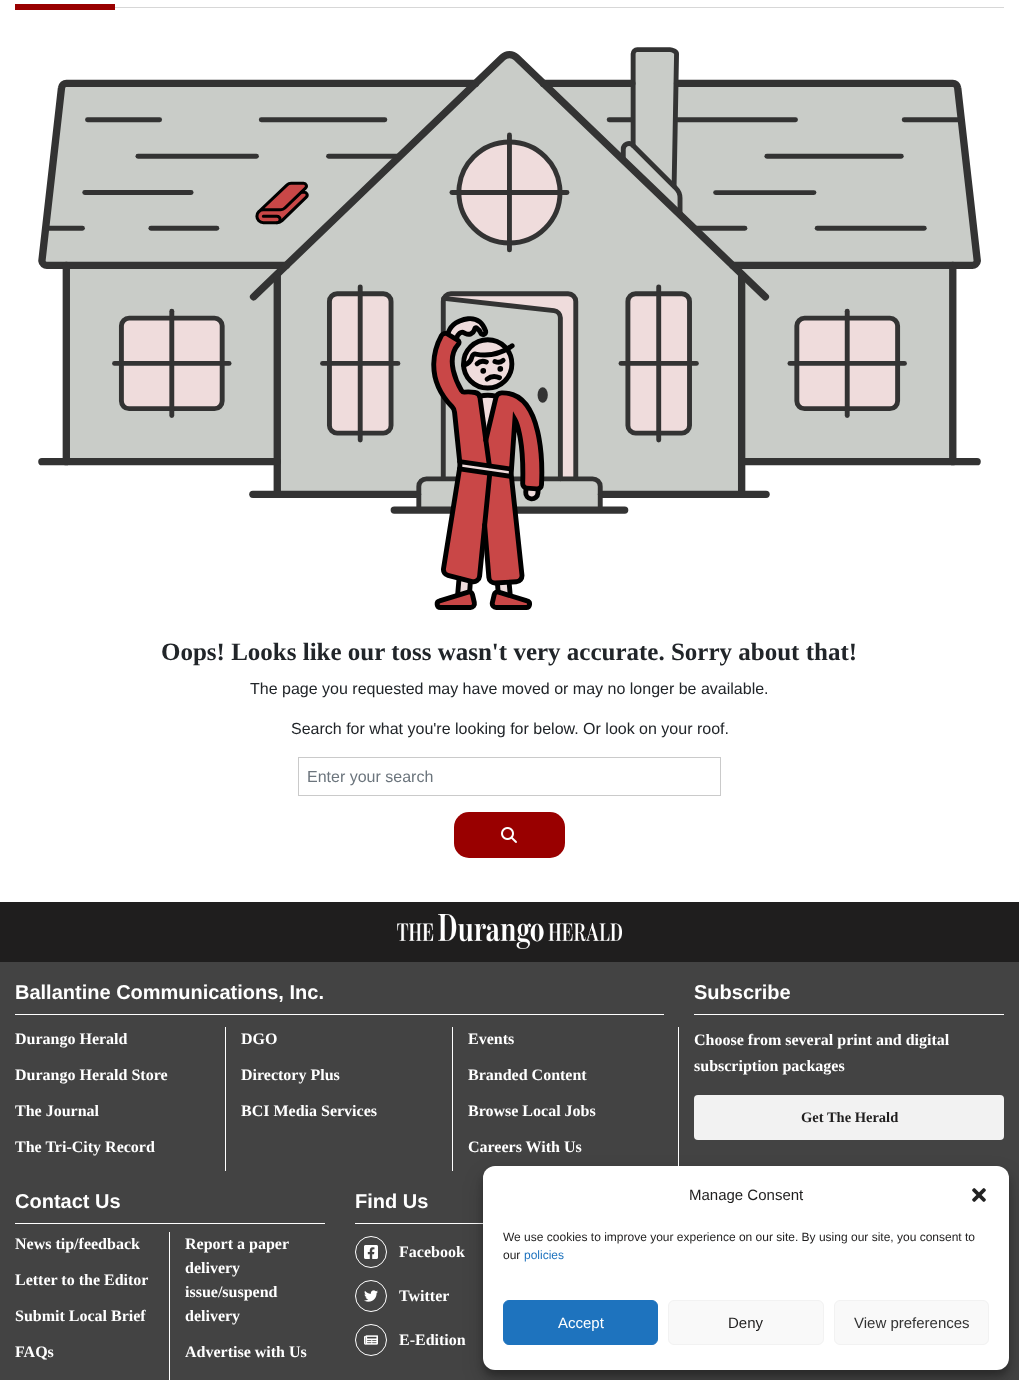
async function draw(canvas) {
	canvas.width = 1019;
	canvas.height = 1380;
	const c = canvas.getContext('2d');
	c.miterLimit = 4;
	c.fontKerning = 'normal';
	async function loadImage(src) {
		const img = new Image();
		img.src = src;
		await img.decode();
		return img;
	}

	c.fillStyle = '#fff';
	c.fillRect(0, 0, 1019, 1380);
	c.fillStyle = '#d7d7d7';
	c.fillRect(115, 7, 889, 1);
	c.fillStyle = '#900';
	c.fillRect(15, 4, 100, 6);
	c.drawImage(await loadImage('img1.png'), 38, 47, 943, 563);
	c.font = 'bold 25px Liberation Serif';
	c.fillStyle = '#212529';
	c.fillText('Oops! Looks like our toss wasn\'t very accurate. Sorry about that!', 161, 660);
	c.font = '16px Liberation Sans';
	c.fillText('The page you requested may have moved or may no longer be available.', 250, 694);
	c.fillText('Search for what you\'re looking for below. Or look on your roof.', 291, 734);
	c.strokeStyle = '#cacaca';
	c.strokeRect(298.5, 757.5, 422, 38);
	c.fillStyle = '#6c757d';
	c.fillText('Enter your search', 307, 782);
	c.fillStyle = '#900';
	c.beginPath();
	c.roundRect(454, 812, 111, 46, 15);
	c.fill();
	c.drawImage(await loadImage('img2.png'), 501, 827, 16, 16);
	c.fillStyle = '#1f1e1e';
	c.fillRect(0, 902, 1019, 60);
	c.drawImage(await loadImage('img3.png'), 397, 914, 225, 35);
	c.fillStyle = '#434343';
	c.fillRect(0, 962, 1019, 418);
	c.fillStyle = '#fff';
	c.fillRect(15, 1014, 649, 1);
	c.font = 'bold 20px Liberation Sans';
	c.fillText('Ballantine Communications, Inc.', 15, 999);
	c.fillRect(225, 1027, 1, 144);
	c.font = 'bold 16px Liberation Serif';
	for (const [text, x, y] of [
		['Durango Herald', 15, 1044],
		['Durango Herald Store', 15, 1080],
		['The Journal', 15, 1116],
		['The Tri-City Record', 15, 1152],
	]) {
		c.fillText(text, x, y);
	}
	c.fillRect(452, 1027, 1, 144);
	for (const [text, x, y] of [
		['DGO', 241, 1044],
		['Directory Plus', 241, 1080],
		['BCI Media Services', 241, 1116],
	]) {
		c.fillText(text, x, y);
	}
	c.fillRect(678, 1027, 1, 144);
	for (const [text, x, y] of [
		['Events', 468, 1044],
		['Branded Content', 468, 1080],
		['Browse Local Jobs', 468, 1116],
		['Careers With Us', 468, 1152],
	]) {
		c.fillText(text, x, y);
	}
	c.fillRect(15, 1223, 310, 1);
	c.font = 'bold 20px Liberation Sans';
	c.fillText('Contact Us', 15, 1208);
	c.fillRect(169, 1232, 1, 148);
	c.font = 'bold 16px Liberation Serif';
	for (const [text, x, y] of [
		['News tip/feedback', 15, 1249],
		['Letter to the Editor', 15, 1285],
		['Submit Local Brief', 15, 1321],
		['FAQs', 15, 1357],
		['Report a paper', 185, 1249],
		['delivery', 185, 1273],
		['issue/suspend', 185, 1297],
		['delivery', 185, 1321],
		['Advertise with Us', 185, 1357],
	]) {
		c.fillText(text, x, y);
	}
	c.fillRect(355, 1223, 128, 1);
	c.font = 'bold 20px Liberation Sans';
	c.fillText('Find Us', 355, 1208);
	c.beginPath();
	c.arc(371, 1252, 15.5, 0, 2 * Math.PI);
	c.strokeStyle = '#fff';
	c.stroke();
	c.drawImage(await loadImage('img4.png'), 364, 1245, 14, 14);
	c.font = 'bold 16px Liberation Serif';
	c.fillText('Facebook', 399, 1257);
	c.beginPath();
	c.arc(371, 1296, 15.5, 0, 2 * Math.PI);
	c.stroke();
	c.drawImage(await loadImage('img5.png'), 364, 1290, 14, 12);
	c.fillText('Twitter', 399, 1301);
	c.beginPath();
	c.arc(371, 1340, 15.5, 0, 2 * Math.PI);
	c.stroke();
	c.drawImage(await loadImage('img6.png'), 364, 1335, 14, 10);
	c.fillText('E-Edition', 399, 1345);
	c.fillRect(694, 1014, 310, 1);
	c.font = 'bold 20px Liberation Sans';
	c.fillText('Subscribe', 694, 999);
	c.font = 'bold 16px Liberation Serif';
	c.fillText('Choose from several print and digital', 694, 1045);
	c.fillText('subscription packages', 694, 1071);
	c.fillStyle = '#f2f2f2';
	c.beginPath();
	c.roundRect(694, 1095, 310, 45, 4);
	c.fill();
	c.font = 'bold 14.5px Liberation Serif';
	c.fillStyle = '#1f1e1e';
	c.fillText('Get The Herald', 801, 1122);
	c.fillStyle = '#0000003b';
	c.filter = 'blur(3px)';
	c.beginPath();
	c.roundRect(483, 1172, 526, 204, 12);
	c.fill();
	c.filter = 'none';
	c.fillStyle = '#00000030';
	c.filter = 'blur(10px)';
	c.beginPath();
	c.roundRect(483, 1176, 526, 204, 12);
	c.fill();
	c.filter = 'none';
	c.fillStyle = '#fff';
	c.beginPath();
	c.roundRect(483, 1166, 526, 204, 12);
	c.fill();
	c.font = '15px Liberation Sans';
	c.fillStyle = '#1f1e1e';
	c.fillText('Manage Consent', 689, 1200);
	c.drawImage(await loadImage('img7.png'), 972, 1188, 14, 14);
	c.font = '12px Liberation Sans';
	c.fillText('We use cookies to improve your experience on our site. By using our site, you consent to', 503, 1241);
	c.fillText('our', 503, 1259);
	c.fillStyle = '#1e73be';
	c.fillText('policies', 524, 1259);
	c.beginPath();
	c.roundRect(503.5, 1300.5, 154, 44, 5.5);
	c.fill();
	c.strokeStyle = '#1e73be';
	c.stroke();
	c.font = '15px Liberation Sans';
	c.fillStyle = '#fff';
	c.fillText('Accept', 558, 1328);
	c.fillStyle = '#f9f9f9';
	c.beginPath();
	c.roundRect(668.5, 1300.5, 155, 44, 5.5);
	c.fill();
	c.strokeStyle = '#f2f2f2';
	c.stroke();
	c.fillStyle = '#1f1e1e';
	c.fillText('Deny', 728, 1328);
	c.fillStyle = '#f9f9f9';
	c.beginPath();
	c.roundRect(834.5, 1300.5, 154, 44, 5.5);
	c.fill();
	c.stroke();
	c.fillStyle = '#333';
	c.fillText('View preferences', 854, 1328);
}

draw(document.querySelector('canvas'));
